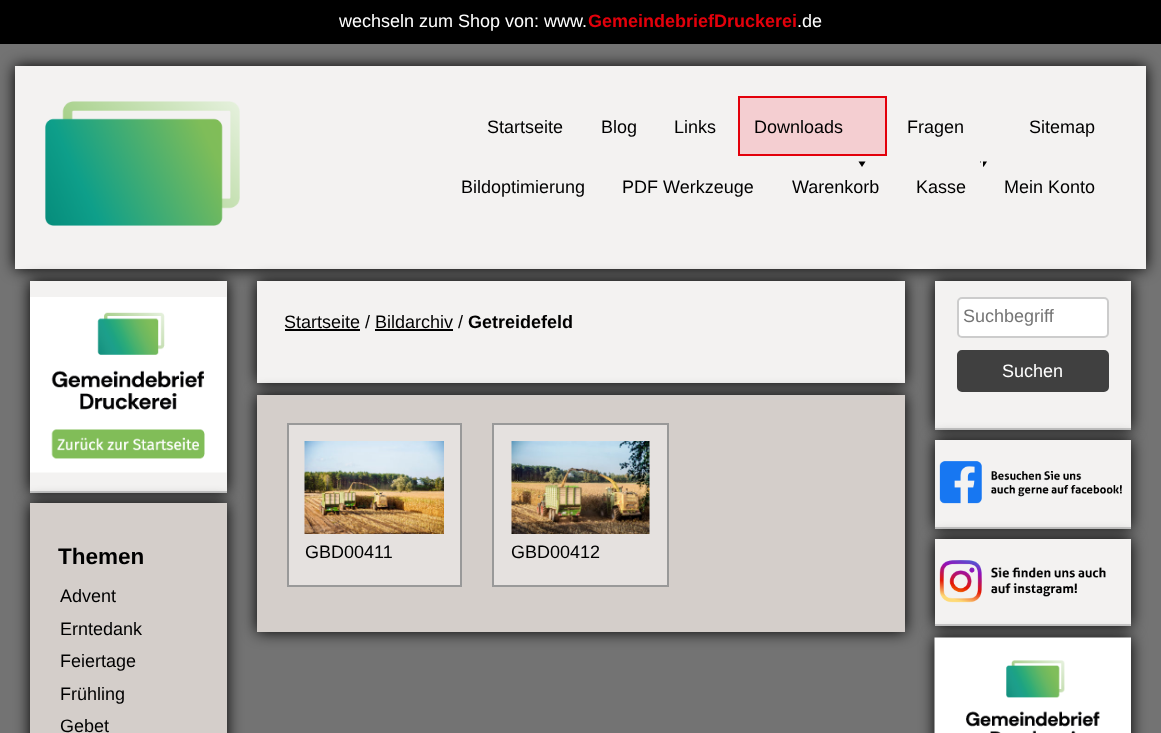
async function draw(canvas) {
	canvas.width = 1161;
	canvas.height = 733;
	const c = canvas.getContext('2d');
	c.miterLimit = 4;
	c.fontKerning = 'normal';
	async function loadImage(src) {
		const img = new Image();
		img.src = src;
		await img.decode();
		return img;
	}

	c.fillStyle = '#737373';
	c.fillRect(0, 0, 1161, 733);
	c.fillStyle = '#000';
	c.fillRect(0, 0, 1161, 44);
	c.font = '18px Liberation Sans';
	c.fillStyle = '#fff';
	c.fillText('wechseln zum Shop von: www.', 339, 27);
	c.font = 'bold 18px Liberation Sans';
	c.fillStyle = '#e3000b';
	c.fillText('GemeindebriefDruckerei', 588, 27);
	c.font = '18px Liberation Sans';
	c.fillStyle = '#fff';
	c.fillText('.de', 797, 27);
	c.fillStyle = '#000';
	c.filter = 'blur(7.5px)';
	c.beginPath();
	c.rect(15, 66, 1131, 203);
	c.fill();
	c.filter = 'none';
	c.fillStyle = '#f3f2f1';
	c.fillRect(15, 66, 1131, 203);
	c.drawImage(await loadImage('img1.png'), 45, 101, 195, 125);
	c.fillStyle = '#000';
	for (const [text, x, y] of [
		['Startseite', 487, 133],
		['Blog', 601, 133],
		['Links', 674, 133],
	]) {
		c.fillText(text, x, y);
	}
	c.fillStyle = '#f4ced1';
	c.beginPath();
	c.rect(739, 97, 147, 58);
	c.fill();
	c.strokeStyle = '#e3000b';
	c.lineWidth = 2;
	c.stroke();
	c.fillStyle = '#000';
	c.fillText('Downloads', 754, 133);
	c.beginPath();
	c.moveTo(865.5, 161.5);
	c.lineTo(862, 167);
	c.lineTo(858.5, 161.5);
	c.closePath();
	c.fill();
	c.fillText('Fragen', 907, 133);
	c.beginPath();
	c.moveTo(987, 161.5);
	c.lineTo(983.5, 167);
	c.lineTo(980, 161.5);
	c.closePath();
	c.fill();
	for (const [text, x, y] of [
		['Sitemap', 1029, 133],
		['Bildoptimierung', 461, 193],
		['PDF Werkzeuge', 622, 193],
		['Warenkorb', 792, 193],
	]) {
		c.fillText(text, x, y);
	}
	c.strokeStyle = '#f3f2f1';
	c.strokeRect(901, 157, 81, 58);
	c.fillText('Kasse', 916, 193);
	c.fillText('Mein Konto', 1004, 193);
	c.filter = 'blur(7.5px)';
	c.beginPath();
	c.rect(257, 281, 648, 102);
	c.fill();
	c.filter = 'none';
	c.fillStyle = '#f3f2f1';
	c.fillRect(257, 281, 648, 102);
	c.fillStyle = '#000';
	c.fillText('Startseite / Bildarchiv /', 284, 328);
	c.fillRect(285, 329, 75, 2);
	c.font = 'bold 18px Liberation Sans';
	c.fillText('Getreidefeld', 468, 328);
	c.fillRect(375, 329, 78, 2);
	c.filter = 'blur(7.5px)';
	c.beginPath();
	c.rect(257, 395, 648, 237);
	c.fill();
	c.filter = 'none';
	c.fillStyle = '#d4ceca';
	c.fillRect(257, 395, 648, 237);
	c.fillStyle = '#e5e1df';
	c.beginPath();
	c.rect(288, 424, 173, 162);
	c.fill();
	c.strokeStyle = '#999';
	c.stroke();
	c.drawImage(await loadImage('img2.png'), 304, 441, 140, 93);
	c.font = '18px Liberation Sans';
	c.fillStyle = '#000';
	c.fillText('GBD00411', 305, 558);
	c.fillStyle = '#e5e1df';
	c.beginPath();
	c.rect(493, 424, 175, 162);
	c.fill();
	c.stroke();
	c.drawImage(await loadImage('img3.png'), 511, 441, 139, 93);
	c.fillStyle = '#000';
	c.fillText('GBD00412', 511, 558);
	c.filter = 'blur(7.5px)';
	c.beginPath();
	c.rect(935, 281, 196, 148);
	c.fill();
	c.filter = 'none';
	c.fillStyle = '#f3f2f1';
	c.fillRect(935, 281, 196, 147);
	c.fillStyle = '#c7c7c7';
	c.fillRect(935, 428, 196, 2);
	c.fillStyle = '#fff';
	c.beginPath();
	c.roundRect(958, 298, 150, 39, 4);
	c.fill();
	c.strokeStyle = '#ccc';
	c.stroke();
	c.fillStyle = '#757575';
	c.fillText('Suchbegriff', 963, 322);
	c.fillStyle = '#404040';
	c.beginPath();
	c.roundRect(958, 351, 150, 40, 4);
	c.fill();
	c.strokeStyle = '#404040';
	c.stroke();
	c.fillStyle = '#fff';
	c.fillText('Suchen', 1002, 377);
	c.fillStyle = '#000';
	c.filter = 'blur(7.5px)';
	c.beginPath();
	c.rect(935, 440, 196, 88);
	c.fill();
	c.filter = 'none';
	c.fillStyle = '#f3f2f1';
	c.fillRect(935, 440, 196, 87);
	c.fillStyle = '#c7c7c7';
	c.fillRect(935, 527, 196, 2);
	c.drawImage(await loadImage('img4.png'), 939, 461, 183, 43);
	c.fillStyle = '#000';
	c.filter = 'blur(7.5px)';
	c.beginPath();
	c.rect(935, 539, 196, 87);
	c.fill();
	c.filter = 'none';
	c.fillStyle = '#f3f2f1';
	c.fillRect(935, 539, 196, 85);
	c.fillStyle = '#c7c7c7';
	c.fillRect(935, 624, 196, 2);
	c.drawImage(await loadImage('img5.png'), 939, 560, 167, 43);
	c.fillStyle = '#000';
	c.filter = 'blur(7.5px)';
	c.beginPath();
	c.rect(935, 638, 196, 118);
	c.fill();
	c.filter = 'none';
	c.drawImage(await loadImage('img6.png'), 934, 637, 197, 96);
	c.filter = 'blur(7.5px)';
	c.beginPath();
	c.rect(30, 281, 197, 211);
	c.fill();
	c.filter = 'none';
	c.fillStyle = '#f3f2f1';
	c.fillRect(30, 281, 197, 210);
	c.fillStyle = '#c7c7c7';
	c.fillRect(30, 491, 197, 2);
	c.drawImage(await loadImage('img7.png'), 30, 297, 197, 176);
	c.fillStyle = '#000';
	c.filter = 'blur(7.5px)';
	c.beginPath();
	c.rect(30, 503, 197, 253);
	c.fill();
	c.filter = 'none';
	c.fillStyle = '#d4ceca';
	c.fillRect(30, 503, 197, 230);
	c.font = 'bold 22.5px Liberation Sans';
	c.fillStyle = '#000';
	c.fillText('Themen', 58, 564);
	c.font = '18px Liberation Sans';
	for (const [text, x, y] of [
		['Advent', 60, 602],
		['Erntedank', 60, 635],
		['Feiertage', 60, 667],
		['Frühling', 60, 700],
		['Gebet', 60, 732],
	]) {
		c.fillText(text, x, y);
	}
}

draw(document.querySelector('canvas'));
